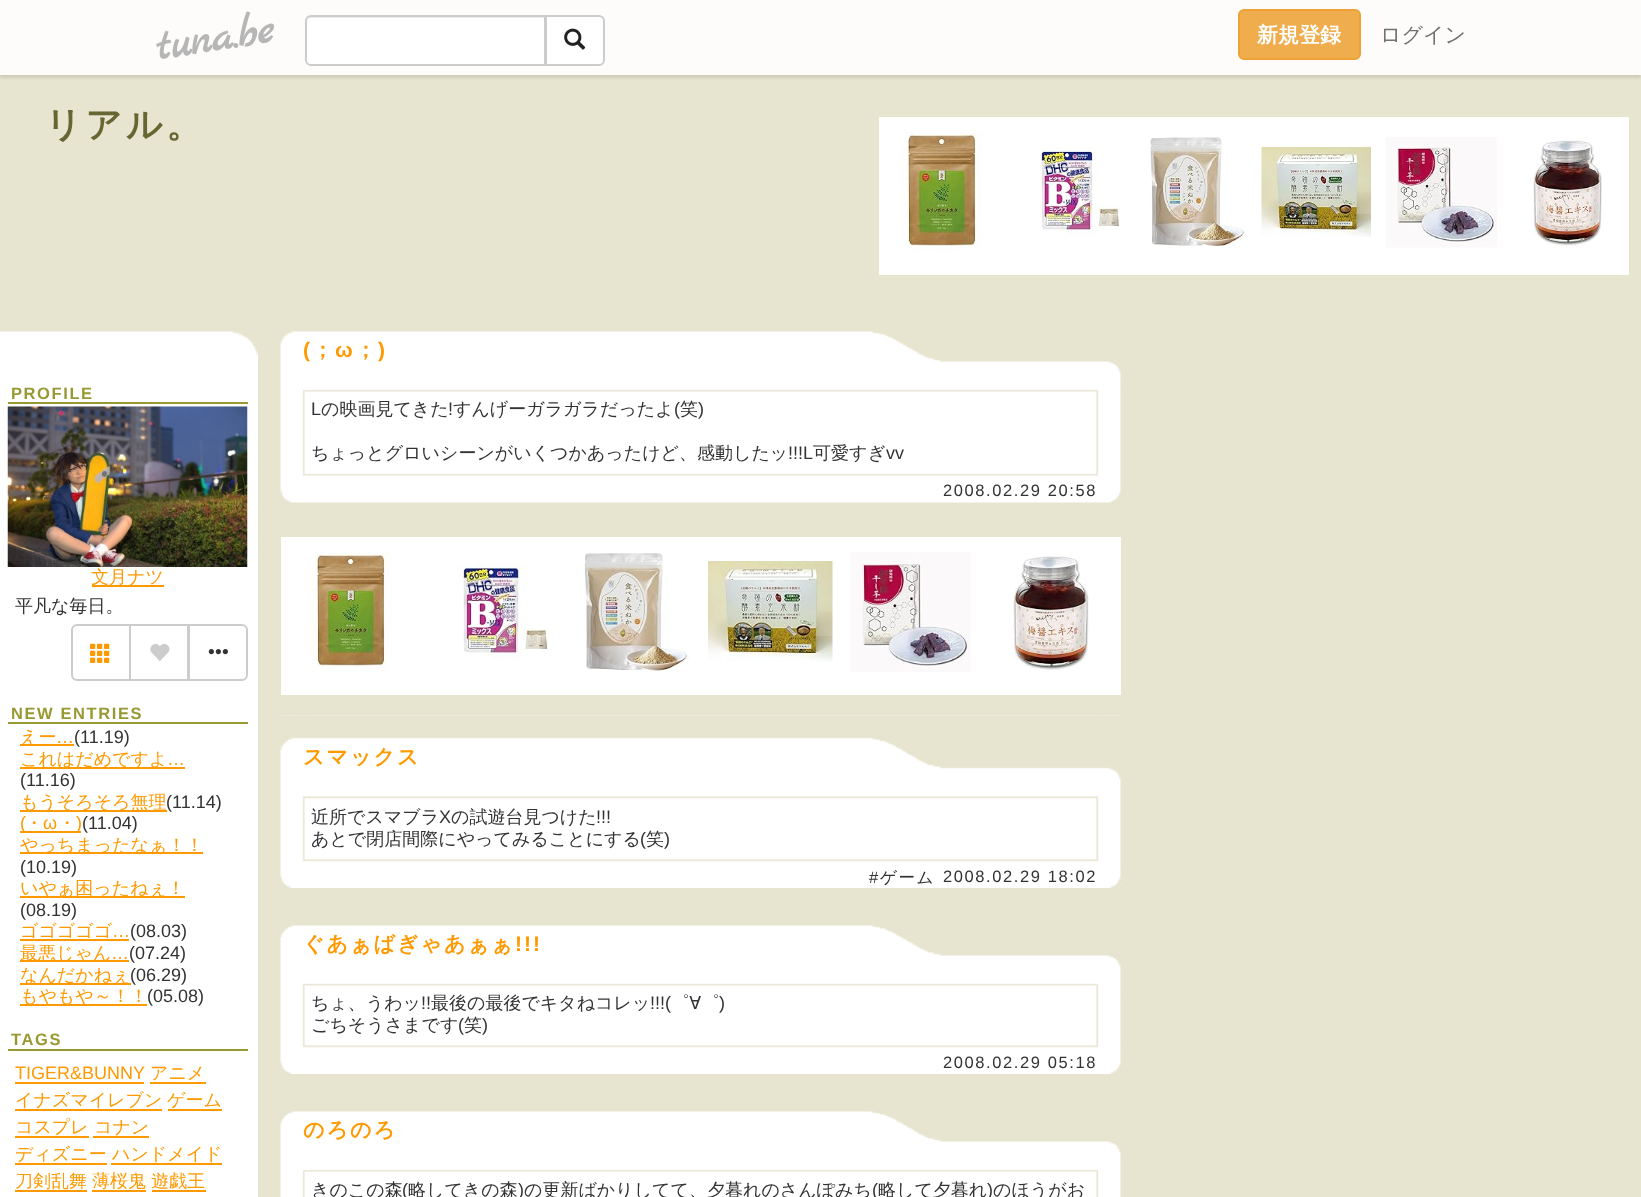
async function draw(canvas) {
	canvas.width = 1641;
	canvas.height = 1197;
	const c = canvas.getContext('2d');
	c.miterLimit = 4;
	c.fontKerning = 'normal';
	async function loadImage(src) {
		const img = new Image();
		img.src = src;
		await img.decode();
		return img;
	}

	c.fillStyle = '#e7e4cf';
	c.fillRect(0, 0, 1641, 1197);
	c.fillStyle = '#0000001a';
	c.filter = 'blur(1.5px)';
	c.beginPath();
	c.rect(0, 3, 1641, 75);
	c.fill();
	c.filter = 'none';
	c.fillStyle = '#fdfcfa';
	c.fillRect(0, 0, 1641, 75);
	c.font = 'bold 45px Marck Script';
	c.fillStyle = '#b6b6b6';
	c.save();
	c.translate(158, 60);
	c.rotate(-9 * Math.PI / 180);
	c.fillText('tuna.be', 0, 0);
	c.restore();
	c.fillStyle = '#fff';
	c.beginPath();
	c.roundRect(305, 15, 241, 51, [6, 0, 0, 6]);
	c.fill();
	c.fillStyle = '#ececec';
	c.beginPath();
	c.moveTo(310, 18);
	c.lineTo(544, 18);
	c.lineTo(544, 65);
	c.lineTo(545, 65);
	c.lineTo(545, 17);
	c.lineTo(311, 17);
	c.bezierCurveTo(308, 17, 306, 19, 306, 22);
	c.bezierCurveTo(306, 20, 308, 18, 310, 18);
	c.closePath();
	c.fill();
	c.beginPath();
	c.roundRect(306, 16, 239, 49, [5, 0, 0, 5]);
	c.strokeStyle = '#ccc';
	c.lineWidth = 2;
	c.stroke();
	c.fillStyle = '#fff';
	c.beginPath();
	c.roundRect(546, 16, 58, 49, [0, 5, 5, 0]);
	c.fill();
	c.stroke();
	c.drawImage(await loadImage('img1.png'), 564, 28, 22, 22);
	c.fillStyle = '#f0ad4e';
	c.beginPath();
	c.roundRect(1239, 10, 121, 49, 5);
	c.fill();
	c.strokeStyle = '#eea236';
	c.stroke();
	c.font = 'bold 21px WenQuanYi Zen Hei';
	c.fillStyle = '#fff';
	c.fillText('新規登録', 1257, 42);
	c.font = '500 21px WenQuanYi Zen Hei';
	c.fillStyle = '#727272';
	c.fillText('ログイン', 1380, 42);
	c.letterSpacing = '3.5px';
	c.font = 'bold 36px WenQuanYi Zen Hei';
	c.fillStyle = '#663';
	c.fillText('リアル。', 45, 137);
	c.fillStyle = '#fff';
	c.fillRect(879, 117, 750, 158);
	c.drawImage(await loadImage('img2.png'), 902, 132, 81, 120);
	c.drawImage(await loadImage('img3.png'), 1033, 147, 88, 90);
	c.drawImage(await loadImage('img4.png'), 1148, 137, 99, 110);
	c.drawImage(await loadImage('img5.png'), 1261, 147, 110, 90);
	c.drawImage(await loadImage('img6.png'), 1386, 137, 111, 111);
	c.drawImage(await loadImage('img7.png'), 1533, 137, 69, 109);
	c.fillRect(0, 356, 258, 841);
	c.drawImage(await loadImage('img8.png'), 0, 309, 258, 47);
	c.fillStyle = '#993';
	c.fillRect(8, 402, 240, 2);
	c.letterSpacing = '1.6px';
	c.font = 'bold 16.5px Liberation Sans';
	c.fillText('PROFILE', 11, 399);
	c.drawImage(await loadImage('img9.png'), 7, 406, 241, 161);
	c.fillStyle = '#f90';
	c.fillRect(92, 585, 72, 2);
	c.letterSpacing = '0px';
	c.font = '500 18px WenQuanYi Zen Hei';
	c.fillText('文月ナツ', 91, 583);
	c.fillStyle = '#333';
	c.fillText('平凡な毎日。', 15, 612);
	c.beginPath();
	c.roundRect(72, 625, 58, 55, [5, 0, 0, 5]);
	c.strokeStyle = '#ccc';
	c.stroke();
	c.drawImage(await loadImage('img10.png'), 90, 643, 20, 20);
	c.strokeRect(130, 625, 58, 55);
	c.drawImage(await loadImage('img11.png'), 150, 644, 20, 18);
	c.fillStyle = '#fff';
	c.beginPath();
	c.roundRect(189, 625, 58, 55, [0, 5, 5, 0]);
	c.fill();
	c.stroke();
	c.drawImage(await loadImage('img12.png'), 208, 649, 20, 6);
	c.fillStyle = '#993';
	c.fillRect(8, 722, 240, 2);
	c.letterSpacing = '1.6px';
	c.font = 'bold 16.5px Liberation Sans';
	c.fillText('NEW ENTRIES', 11, 719);
	c.fillStyle = '#f90';
	c.fillRect(20, 744, 54, 2);
	c.letterSpacing = '0px';
	c.font = '500 18px WenQuanYi Zen Hei';
	c.fillText('えー', 20, 743);
	c.font = '18px Liberation Sans';
	c.fillText('…', 56, 743);
	c.fillStyle = '#333';
	c.fillText('(11.19)', 74, 743);
	c.fillStyle = '#f90';
	c.fillRect(20, 767, 165, 2);
	c.font = '500 18px WenQuanYi Zen Hei';
	c.fillText('これはだめですよ', 20, 765);
	c.font = '18px Liberation Sans';
	c.fillText('…', 167, 765);
	c.fillStyle = '#333';
	c.fillText('(11.16)', 20, 786);
	c.fillStyle = '#f90';
	c.fillRect(20, 810, 147, 2);
	c.font = '500 18px WenQuanYi Zen Hei';
	c.fillText('もうそろそろ無理', 20, 808);
	c.font = '18px Liberation Sans';
	c.fillStyle = '#333';
	c.fillText('(11.14)', 166, 808);
	c.fillStyle = '#f90';
	c.fillRect(20, 831, 61, 2);
	c.fillText('(', 20, 829);
	c.font = '500 18px WenQuanYi Zen Hei';
	c.fillText('・', 25, 829);
	c.font = '18px Liberation Sans';
	c.fillText('ω', 43, 829);
	c.font = '500 18px WenQuanYi Zen Hei';
	c.fillText('・', 58, 829);
	c.font = '18px Liberation Sans';
	c.fillText(')', 76, 829);
	c.fillStyle = '#333';
	c.fillText('(11.04)', 82, 829);
	c.fillStyle = '#f90';
	c.fillRect(20, 852, 183, 2);
	c.font = '500 18px WenQuanYi Zen Hei';
	c.fillText('やっちまったなぁ！！', 20, 851);
	c.font = '18px Liberation Sans';
	c.fillStyle = '#333';
	c.fillText('(10.19)', 20, 873);
	c.fillStyle = '#f90';
	c.fillRect(20, 896, 165, 2);
	c.font = '500 18px WenQuanYi Zen Hei';
	c.fillText('いやぁ困ったねぇ！', 20, 894);
	c.font = '18px Liberation Sans';
	c.fillStyle = '#333';
	c.fillText('(08.19)', 20, 916);
	c.font = '500 18px WenQuanYi Zen Hei';
	c.fillStyle = '#f90';
	c.fillText('ゴゴゴゴゴ', 20, 937);
	c.font = '18px Liberation Sans';
	c.fillText('…', 112, 937);
	c.fillRect(20, 939, 109, 2);
	c.fillStyle = '#333';
	c.fillText('(08.03)', 130, 937);
	c.fillStyle = '#f90';
	c.fillRect(20, 960, 109, 2);
	c.font = '500 18px WenQuanYi Zen Hei';
	c.fillText('最悪じゃん', 20, 959);
	c.font = '18px Liberation Sans';
	c.fillText('…', 111, 959);
	c.fillStyle = '#333';
	c.fillText('(07.24)', 129, 959);
	c.fillStyle = '#f90';
	c.fillRect(20, 983, 111, 2);
	c.font = '500 18px WenQuanYi Zen Hei';
	c.fillText('なんだかねぇ', 20, 981);
	c.font = '18px Liberation Sans';
	c.fillStyle = '#333';
	c.fillText('(06.29)', 130, 981);
	c.fillStyle = '#f90';
	c.fillRect(20, 1004, 127, 2);
	c.font = '500 18px WenQuanYi Zen Hei';
	c.fillText('もやもや～！！', 20, 1002);
	c.font = '18px Liberation Sans';
	c.fillStyle = '#333';
	c.fillText('(05.08)', 147, 1002);
	c.fillStyle = '#993';
	c.fillRect(8, 1049, 240, 2);
	c.letterSpacing = '1.6px';
	c.font = 'bold 16.5px Liberation Sans';
	c.fillText('TAGS', 11, 1045);
	c.letterSpacing = '0px';
	c.font = '18px Liberation Sans';
	c.fillStyle = '#f90';
	c.fillText('TIGER&BUNNY', 15, 1079);
	c.fillRect(15, 1082, 129, 2);
	c.font = '500 18px WenQuanYi Zen Hei';
	c.fillText('アニメ', 150, 1079);
	c.fillRect(150, 1082, 56, 2);
	c.fillText('イナズマイレブン', 15, 1106);
	c.fillRect(15, 1109, 147, 2);
	c.fillText('ゲーム', 167, 1106);
	c.fillRect(168, 1109, 54, 2);
	c.fillText('コスプレ', 15, 1133);
	c.fillRect(15, 1136, 74, 2);
	c.fillText('コナン', 94, 1133);
	c.fillRect(93, 1136, 56, 2);
	c.fillText('ディズニー', 15, 1160);
	c.fillRect(15, 1163, 92, 2);
	c.fillText('ハンドメイド', 112, 1160);
	c.fillRect(111, 1163, 111, 2);
	c.fillText('刀剣乱舞', 15, 1187);
	c.fillRect(15, 1190, 72, 2);
	c.fillText('薄桜鬼', 92, 1187);
	c.fillRect(92, 1190, 54, 2);
	c.fillText('遊戯王', 151, 1187);
	c.fillRect(152, 1190, 54, 2);
	c.drawImage(await loadImage('img13.png'), 280, 399, 841, 66);
	c.drawImage(await loadImage('img14.png'), 280, 309, 848, 90);
	c.letterSpacing = '2px';
	c.font = 'bold 21px Liberation Sans';
	c.fillText('(', 303, 357);
	c.font = 'bold 21px WenQuanYi Zen Hei';
	c.fillText('；', 312, 357);
	c.font = 'bold 21px Liberation Sans';
	c.fillText('ω', 335, 357);
	c.font = 'bold 21px WenQuanYi Zen Hei';
	c.fillText('；', 355, 357);
	c.font = 'bold 21px Liberation Sans';
	c.fillText(')', 378, 357);
	c.letterSpacing = '0px';
	c.font = '18px Liberation Sans';
	c.fillStyle = '#333';
	c.fillText('L', 311, 415);
	c.font = '500 18px WenQuanYi Zen Hei';
	c.fillText('の映画見てきた', 321, 415);
	c.font = '18px Liberation Sans';
	c.fillText('!', 448, 415);
	c.font = '500 18px WenQuanYi Zen Hei';
	c.fillText('すんげーガラガラだったよ', 453, 415);
	c.font = '18px Liberation Sans';
	c.fillText('(', 674, 415);
	c.font = '500 18px WenQuanYi Zen Hei';
	c.fillText('笑', 680, 415);
	c.font = '18px Liberation Sans';
	c.fillText(')', 698, 415);
	c.font = '500 18px WenQuanYi Zen Hei';
	c.fillText('ちょっとグロいシーンがいくつかあったけど、感動したッ', 311, 459);
	c.font = '18px Liberation Sans';
	c.fillText('!!!L', 788, 459);
	c.font = '500 18px WenQuanYi Zen Hei';
	c.fillText('可愛すぎ', 813, 459);
	c.font = '18px Liberation Sans';
	c.fillText('vv', 886, 459);
	c.drawImage(await loadImage('img15.png'), 280, 465, 848, 38);
	c.letterSpacing = '1.6px';
	c.font = '16.5px Liberation Sans';
	c.fillText('2008.02.29 20:58', 943, 496);
	c.fillStyle = '#fff';
	c.fillRect(281, 537, 840, 158);
	c.drawImage(await loadImage('img2.png'), 311, 552, 81, 120);
	c.drawImage(await loadImage('img16.png'), 455, 563, 94, 97);
	c.drawImage(await loadImage('img17.png'), 582, 553, 108, 119);
	c.drawImage(await loadImage('img18.png'), 708, 561, 125, 101);
	c.drawImage(await loadImage('img19.png'), 851, 552, 120, 120);
	c.drawImage(await loadImage('img20.png'), 1013, 552, 76, 119);
	c.drawImage(await loadImage('img21.png'), 280, 715, 841, 136);
	c.drawImage(await loadImage('img22.png'), 280, 715, 841, 84);
	c.letterSpacing = '2px';
	c.font = 'bold 21px WenQuanYi Zen Hei';
	c.fillStyle = '#f90';
	c.fillText('スマックス', 303, 764);
	c.letterSpacing = '0px';
	c.font = '500 18px WenQuanYi Zen Hei';
	c.fillStyle = '#333';
	c.fillText('近所でスマブラ', 311, 823);
	c.font = '18px Liberation Sans';
	c.fillText('X', 439, 823);
	c.font = '500 18px WenQuanYi Zen Hei';
	c.fillText('の試遊台見つけた', 451, 823);
	c.font = '18px Liberation Sans';
	c.fillText('!!!', 596, 823);
	c.font = '500 18px WenQuanYi Zen Hei';
	c.fillText('あとで閉店間際にやってみることにする', 311, 845);
	c.font = '18px Liberation Sans';
	c.fillText('(', 640, 845);
	c.font = '500 18px WenQuanYi Zen Hei';
	c.fillText('笑', 646, 845);
	c.font = '18px Liberation Sans';
	c.fillText(')', 664, 845);
	c.drawImage(await loadImage('img23.png'), 280, 851, 848, 37);
	c.letterSpacing = '1.6px';
	c.font = '16.5px Liberation Sans';
	c.fillText('#', 869, 883);
	c.font = '500 16.5px WenQuanYi Zen Hei';
	c.fillText('ゲーム', 880, 883);
	c.font = '16.5px Liberation Sans';
	c.fillText('2008.02.29 18:02', 943, 882);
	c.drawImage(await loadImage('img24.png'), 280, 993, 841, 44);
	c.drawImage(await loadImage('img14.png'), 280, 903, 848, 90);
	c.letterSpacing = '2px';
	c.font = 'bold 21px WenQuanYi Zen Hei';
	c.fillStyle = '#f90';
	c.fillText('ぐあぁばぎゃあぁぁ', 303, 951);
	c.font = 'bold 21px Liberation Sans';
	c.fillText('!!!', 515, 951);
	c.letterSpacing = '0px';
	c.font = '500 18px WenQuanYi Zen Hei';
	c.fillStyle = '#333';
	c.fillText('ちょ、うわッ', 311, 1009);
	c.font = '18px Liberation Sans';
	c.fillText('!!', 421, 1009);
	c.font = '500 18px WenQuanYi Zen Hei';
	c.fillText('最後の最後でキタねコレッ', 431, 1009);
	c.font = '18px Liberation Sans';
	c.fillText('!!!(', 650, 1009);
	c.font = '500 18px WenQuanYi Zen Hei';
	c.fillText('゜∀゜', 671, 1009);
	c.font = '18px Liberation Sans';
	c.fillText(')', 719, 1009);
	c.font = '500 18px WenQuanYi Zen Hei';
	c.fillText('ごちそうさまです', 311, 1031);
	c.font = '18px Liberation Sans';
	c.fillText('(', 458, 1031);
	c.font = '500 18px WenQuanYi Zen Hei';
	c.fillText('笑', 464, 1031);
	c.font = '18px Liberation Sans';
	c.fillText(')', 482, 1031);
	c.drawImage(await loadImage('img23.png'), 280, 1037, 848, 37);
	c.letterSpacing = '1.6px';
	c.font = '16.5px Liberation Sans';
	c.fillText('2008.02.29 05:18', 943, 1068);
	c.drawImage(await loadImage('img25.png'), 280, 1179, 841, 18);
	c.drawImage(await loadImage('img14.png'), 280, 1089, 848, 90);
	c.letterSpacing = '2px';
	c.font = 'bold 21px WenQuanYi Zen Hei';
	c.fillStyle = '#f90';
	c.fillText('のろのろ', 303, 1137);
	c.letterSpacing = '0px';
	c.font = '500 18px WenQuanYi Zen Hei';
	c.fillStyle = '#333';
	c.fillText('きのこの森', 311, 1196);
	c.font = '18px Liberation Sans';
	c.fillText('(', 402, 1196);
	c.font = '500 18px WenQuanYi Zen Hei';
	c.fillText('略してきの森', 408, 1196);
	c.font = '18px Liberation Sans';
	c.fillText(')', 518, 1196);
	c.font = '500 18px WenQuanYi Zen Hei';
	c.fillText('の更新ばかりしてて、夕暮れのさんぽみち', 524, 1196);
	c.font = '18px Liberation Sans';
	c.fillText('(', 872, 1196);
	c.font = '500 18px WenQuanYi Zen Hei';
	c.fillText('略して夕暮れ', 878, 1196);
	c.font = '18px Liberation Sans';
	c.fillText(')', 987, 1196);
	c.font = '500 18px WenQuanYi Zen Hei';
	c.fillText('のほうがお', 993, 1196);
}

draw(document.querySelector('canvas'));
